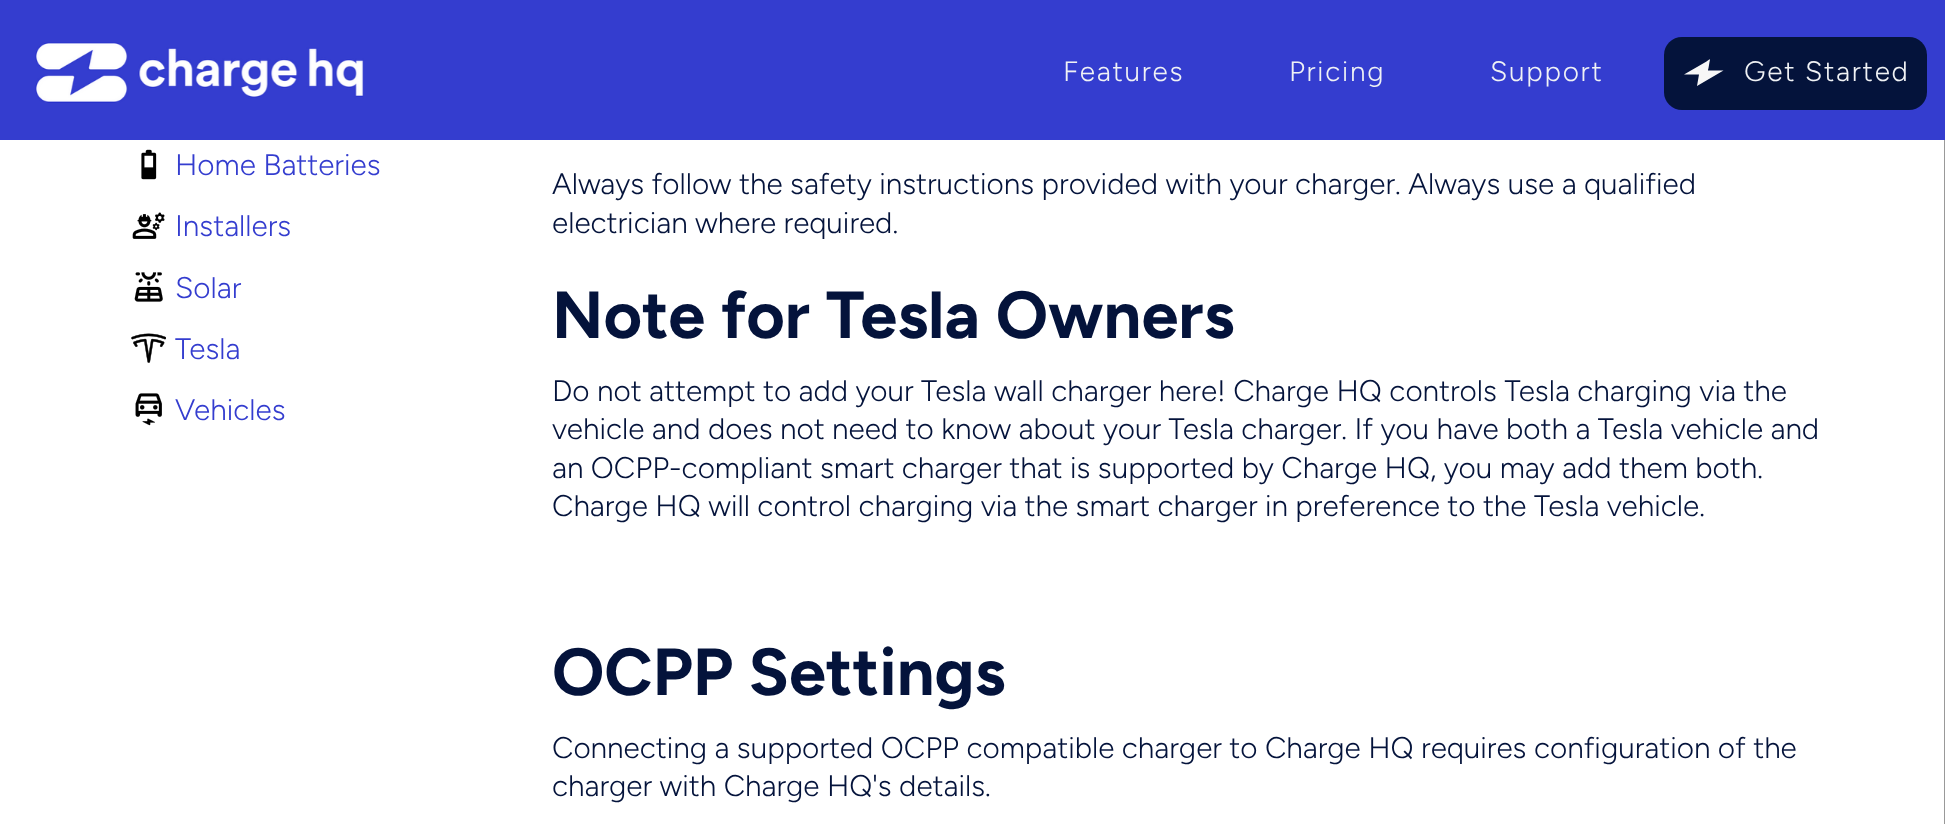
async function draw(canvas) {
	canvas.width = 1945;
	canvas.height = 824;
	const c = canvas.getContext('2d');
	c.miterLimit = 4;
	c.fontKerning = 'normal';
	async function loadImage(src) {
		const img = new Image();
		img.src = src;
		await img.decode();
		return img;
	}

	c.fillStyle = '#fff';
	c.fillRect(0, 0, 1945, 824);
	c.fillStyle = '#343dcf';
	c.fillRect(0, 0, 1945, 140);
	c.drawImage(await loadImage('img1.png'), 35, 42, 329, 61);
	c.letterSpacing = '1.75px';
	c.font = '300 28px Figtree';
	c.fillStyle = '#f0f2f5';
	for (const [text, x, y] of [
		['Features', 1063, 81],
		['Pricing', 1289, 81],
		['Support', 1490, 81],
	]) {
		c.fillText(text, x, y);
	}
	c.fillStyle = '#04133b';
	c.beginPath();
	c.roundRect(1664, 37, 263, 73, 18);
	c.fill();
	c.fillStyle = '#f7f7f7';
	c.beginPath();
	c.moveTo(1697, 67);
	c.lineTo(1684, 74.5);
	c.lineTo(1699, 74.5);
	c.lineTo(1697, 86);
	c.lineTo(1723.5, 70.5);
	c.lineTo(1710.5, 70.5);
	c.bezierCurveTo(1707, 70.5, 1708, 71, 1708.5, 68);
	c.lineTo(1709.5, 62);
	c.bezierCurveTo(1710.5, 58, 1710.5, 59, 1706.5, 61.5);
	c.closePath();
	c.fill();
	c.fillStyle = '#f0f2f5';
	c.fillText('Get Started', 1744, 81);
	c.fillStyle = '#999';
	c.fillRect(1944, 140, 1, 684);
	c.drawImage(await loadImage('img2.png'), 141, 149, 16, 31);
	c.letterSpacing = '0px';
	c.font = '300 29.75px Figtree';
	c.fillStyle = '#343dcf';
	c.fillText('Home Batteries', 175, 175);
	c.drawImage(await loadImage('img3.png'), 132, 212, 33, 27);
	c.fillText('Installers', 175, 236);
	c.drawImage(await loadImage('img4.png'), 134, 272, 29, 30);
	c.fillText('Solar', 175, 298);
	c.drawImage(await loadImage('img5.png'), 131, 333, 35, 30);
	c.fillText('Tesla', 175, 359);
	c.drawImage(await loadImage('img6.png'), 135, 393, 27, 33);
	c.fillText('Vehicles', 175, 420);
	c.fillStyle = '#04133b';
	c.fillText('Always follow the safety instructions provided with your charger. Always use a qualified', 552, 194);
	c.fillText('electrician where required.', 552, 233);
	c.font = 'bold 66.5px Figtree';
	c.fillText('Note for Tesla Owners', 552, 338);
	c.font = '300 29.75px Figtree';
	for (const [text, x, y] of [
		['Do not attempt to add your Tesla wall charger here! Charge HQ controls Tesla charging via the', 552, 401],
		['vehicle and does not need to know about your Tesla charger. If you have both a Tesla vehicle and', 552, 439],
		['an OCPP-compliant smart charger that is supported by Charge HQ, you may add them both.', 552, 478],
		['Charge HQ will control charging via the smart charger in preference to the Tesla vehicle.', 552, 516],
	]) {
		c.fillText(text, x, y);
	}
	c.font = 'bold 66.5px Figtree';
	c.fillText('OCPP Settings', 552, 695);
	c.font = '300 29.75px Figtree';
	c.fillText('Connecting a supported OCPP compatible charger to Charge HQ requires configuration of the', 552, 758);
	c.fillText('charger with Charge HQ\'s details.', 552, 796);
}

draw(document.querySelector('canvas'));
